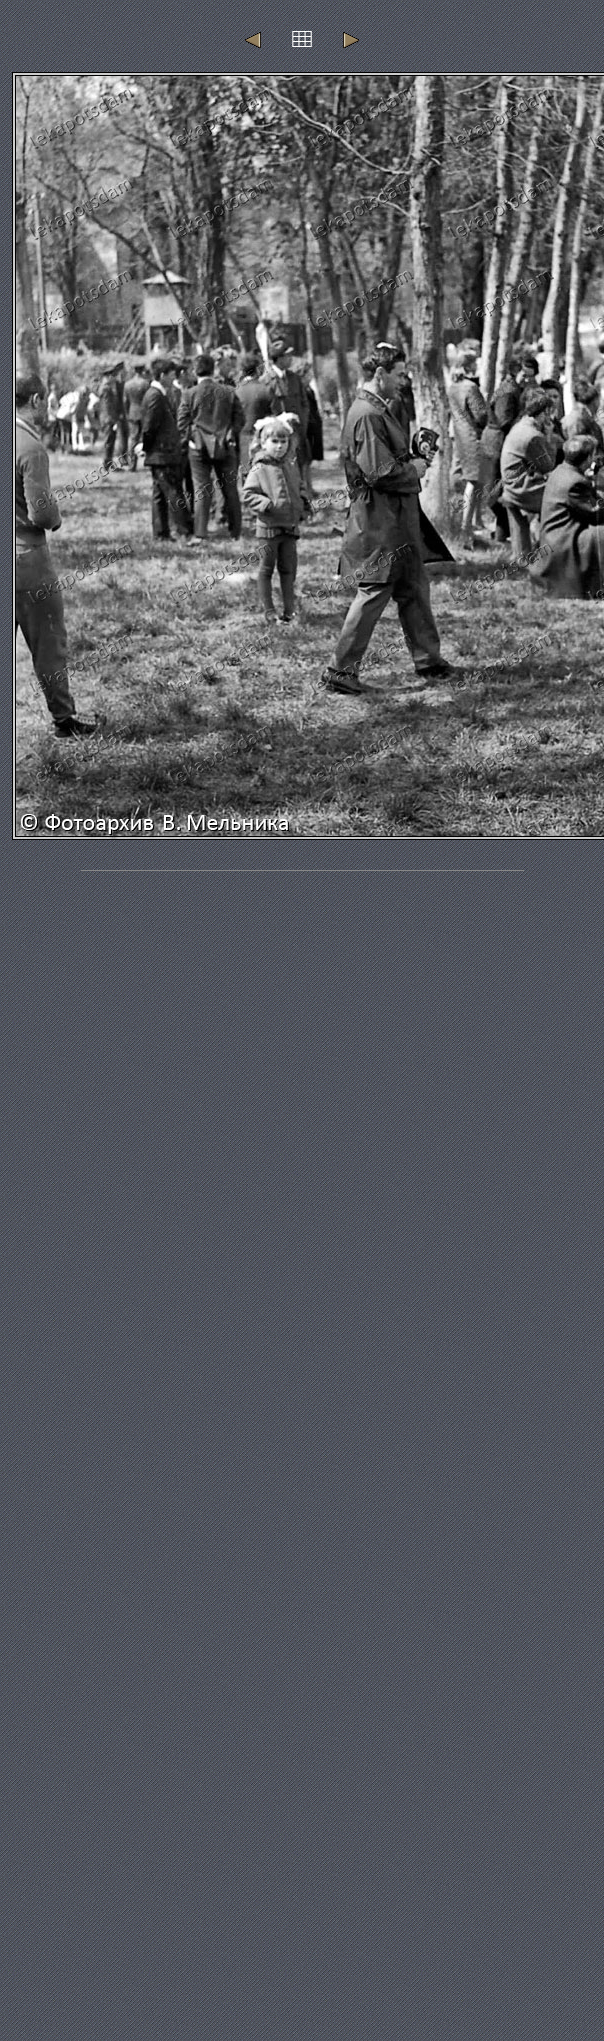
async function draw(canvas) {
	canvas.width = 604;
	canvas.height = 2041;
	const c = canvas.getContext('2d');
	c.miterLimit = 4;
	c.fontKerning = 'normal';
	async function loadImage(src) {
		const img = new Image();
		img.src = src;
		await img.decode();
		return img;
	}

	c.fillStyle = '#fff';
	c.fillRect(0, 0, 604, 2041);
	c.drawImage(await loadImage('img1.png'), 0, 0, 604, 2041);
	c.drawImage(await loadImage('img2.png'), 245, 32, 16, 16);
	c.drawImage(await loadImage('img3.png'), 292, 31, 20, 16);
	c.drawImage(await loadImage('img4.png'), 343, 32, 16, 16);
	c.drawImage(await loadImage('img5.png'), 12, 72, 592, 768);
	c.fillStyle = '#888';
	c.fillRect(81, 870, 443, 1);
}

draw(document.querySelector('canvas'));
